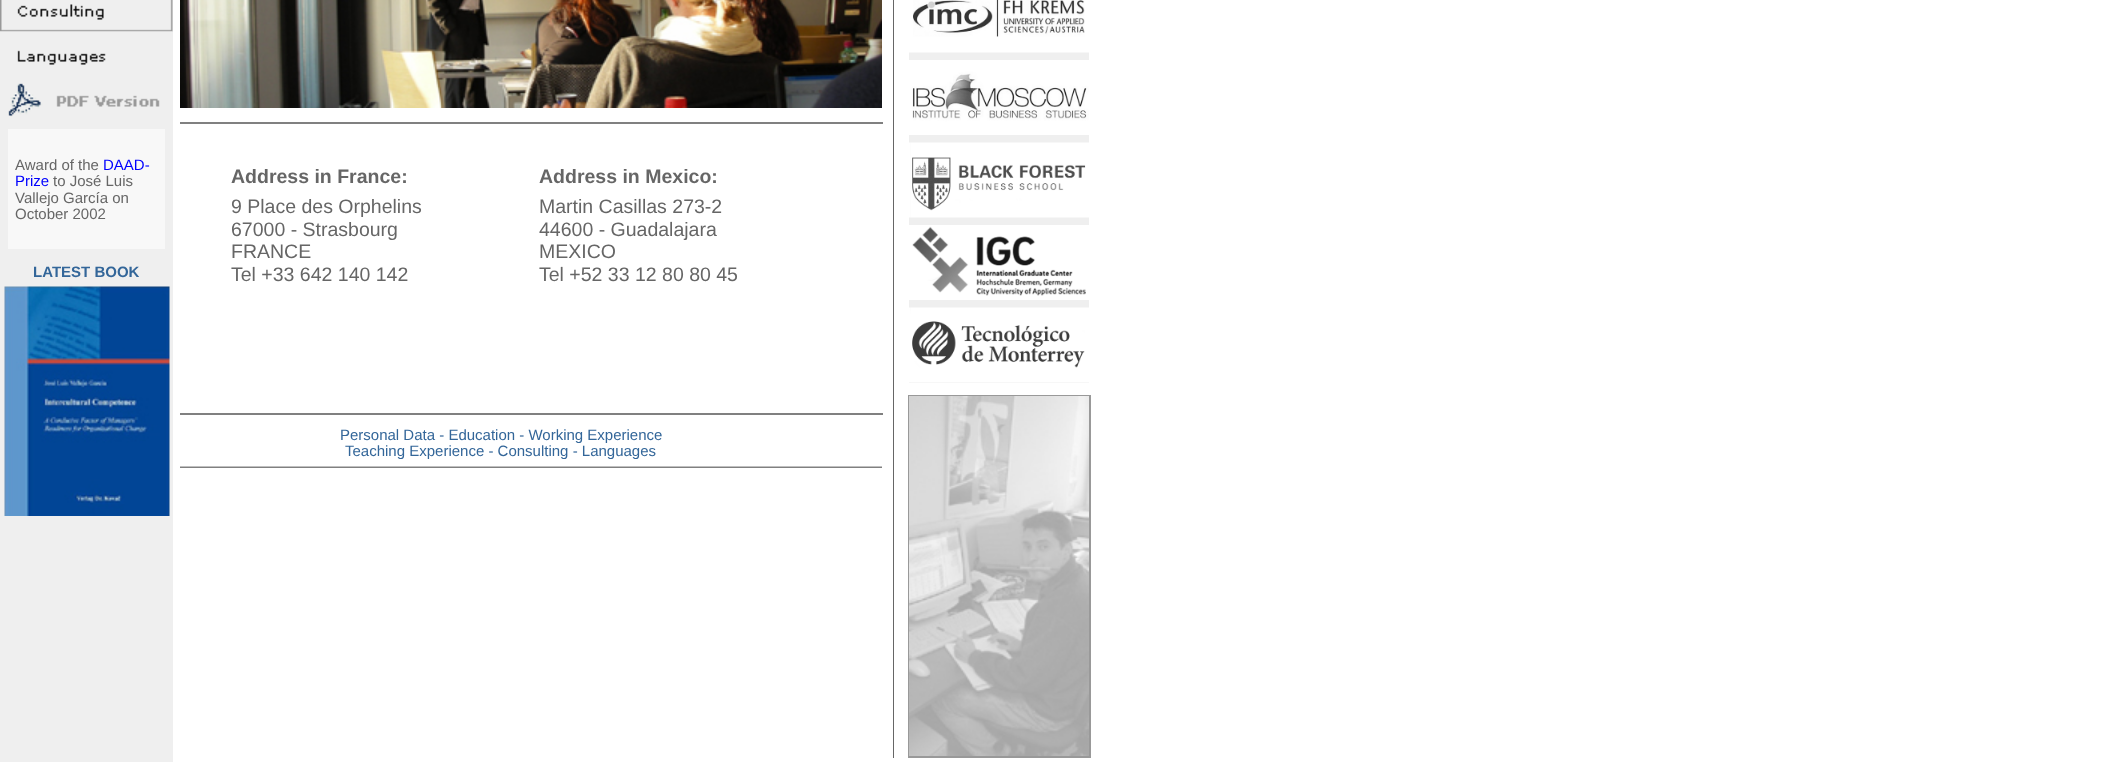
async function draw(canvas) {
	canvas.width = 2111;
	canvas.height = 762;
	const c = canvas.getContext('2d');
	c.miterLimit = 4;
	c.fontKerning = 'normal';
	async function loadImage(src) {
		const img = new Image();
		img.src = src;
		await img.decode();
		return img;
	}

	c.fillStyle = '#fff';
	c.fillRect(0, 0, 2111, 762);
	c.fillStyle = '#efefef';
	c.fillRect(0, 0, 173, 762);
	c.drawImage(await loadImage('img1.png'), 0, 0, 173, 32);
	c.drawImage(await loadImage('img2.png'), 0, 31, 173, 34);
	c.drawImage(await loadImage('img3.png'), 8, 83, 152, 34);
	c.fillStyle = '#f8f8f8';
	c.fillRect(8, 129, 157, 120);
	c.font = '15px Liberation Sans';
	c.fillStyle = '#666';
	c.fillText('Award of the', 15, 170);
	c.fillStyle = '#00f';
	c.fillText('DAAD-', 103, 170);
	c.fillText('Prize', 15, 186);
	c.fillStyle = '#666';
	for (const [text, x, y] of [
		['to José Luis', 53, 186],
		['Vallejo García on', 15, 203],
		['October 2002', 15, 219],
	]) {
		c.fillText(text, x, y);
	}
	c.font = 'bold 15px Liberation Sans';
	c.fillStyle = '#369';
	c.fillText('LATEST BOOK', 33, 277);
	c.drawImage(await loadImage('img4.png'), 4, 286, 166, 230);
	c.drawImage(await loadImage('img5.png'), 180, 0, 702, 108);
	c.fillStyle = '#808080';
	c.fillRect(180, 122, 703, 2);
	c.font = 'bold 19.5px Liberation Sans';
	c.fillStyle = '#666';
	c.fillText('Address in France:', 231, 183);
	c.fillText('Address in Mexico:', 539, 183);
	c.font = '19.5px Liberation Sans';
	for (const [text, x, y] of [
		['9 Place des Orphelins', 231, 213],
		['67000 - Strasbourg', 231, 236],
		['FRANCE', 231, 258],
		['Tel +33 642 140 142', 231, 281],
		['Martin Casillas 273-2', 539, 213],
		['44600 - Guadalajara', 539, 236],
		['MEXICO', 539, 258],
		['Tel +52 33 12 80 80 45', 539, 281],
	]) {
		c.fillText(text, x, y);
	}
	c.fillStyle = '#808080';
	c.fillRect(180, 413, 703, 2);
	c.font = '15px Liberation Sans';
	c.fillStyle = '#369';
	c.fillText('Personal Data - Education - Working Experience', 340, 440);
	c.fillText('Teaching Experience - Consulting - Languages', 345, 456);
	c.drawImage(await loadImage('img6.png'), 180, 459, 702, 9);
	c.fillStyle = '#666';
	c.fillRect(893, 0, 1, 758);
	c.fillStyle = '#efefef';
	c.fillRect(909, 52, 180, 173);
	c.drawImage(await loadImage('img7.png'), 909, 0, 180, 53);
	c.drawImage(await loadImage('img8.png'), 909, 60, 180, 75);
	c.drawImage(await loadImage('img9.png'), 909, 142, 180, 76);
	c.drawImage(await loadImage('img10.png'), 909, 225, 180, 75);
	c.fillRect(909, 300, 180, 83);
	c.drawImage(await loadImage('img11.png'), 909, 307, 180, 76);
	c.fillStyle = '#999';
	c.fillRect(908, 395, 183, 363);
	c.drawImage(await loadImage('img12.png'), 909, 396, 180, 360);
}

draw(document.querySelector('canvas'));
